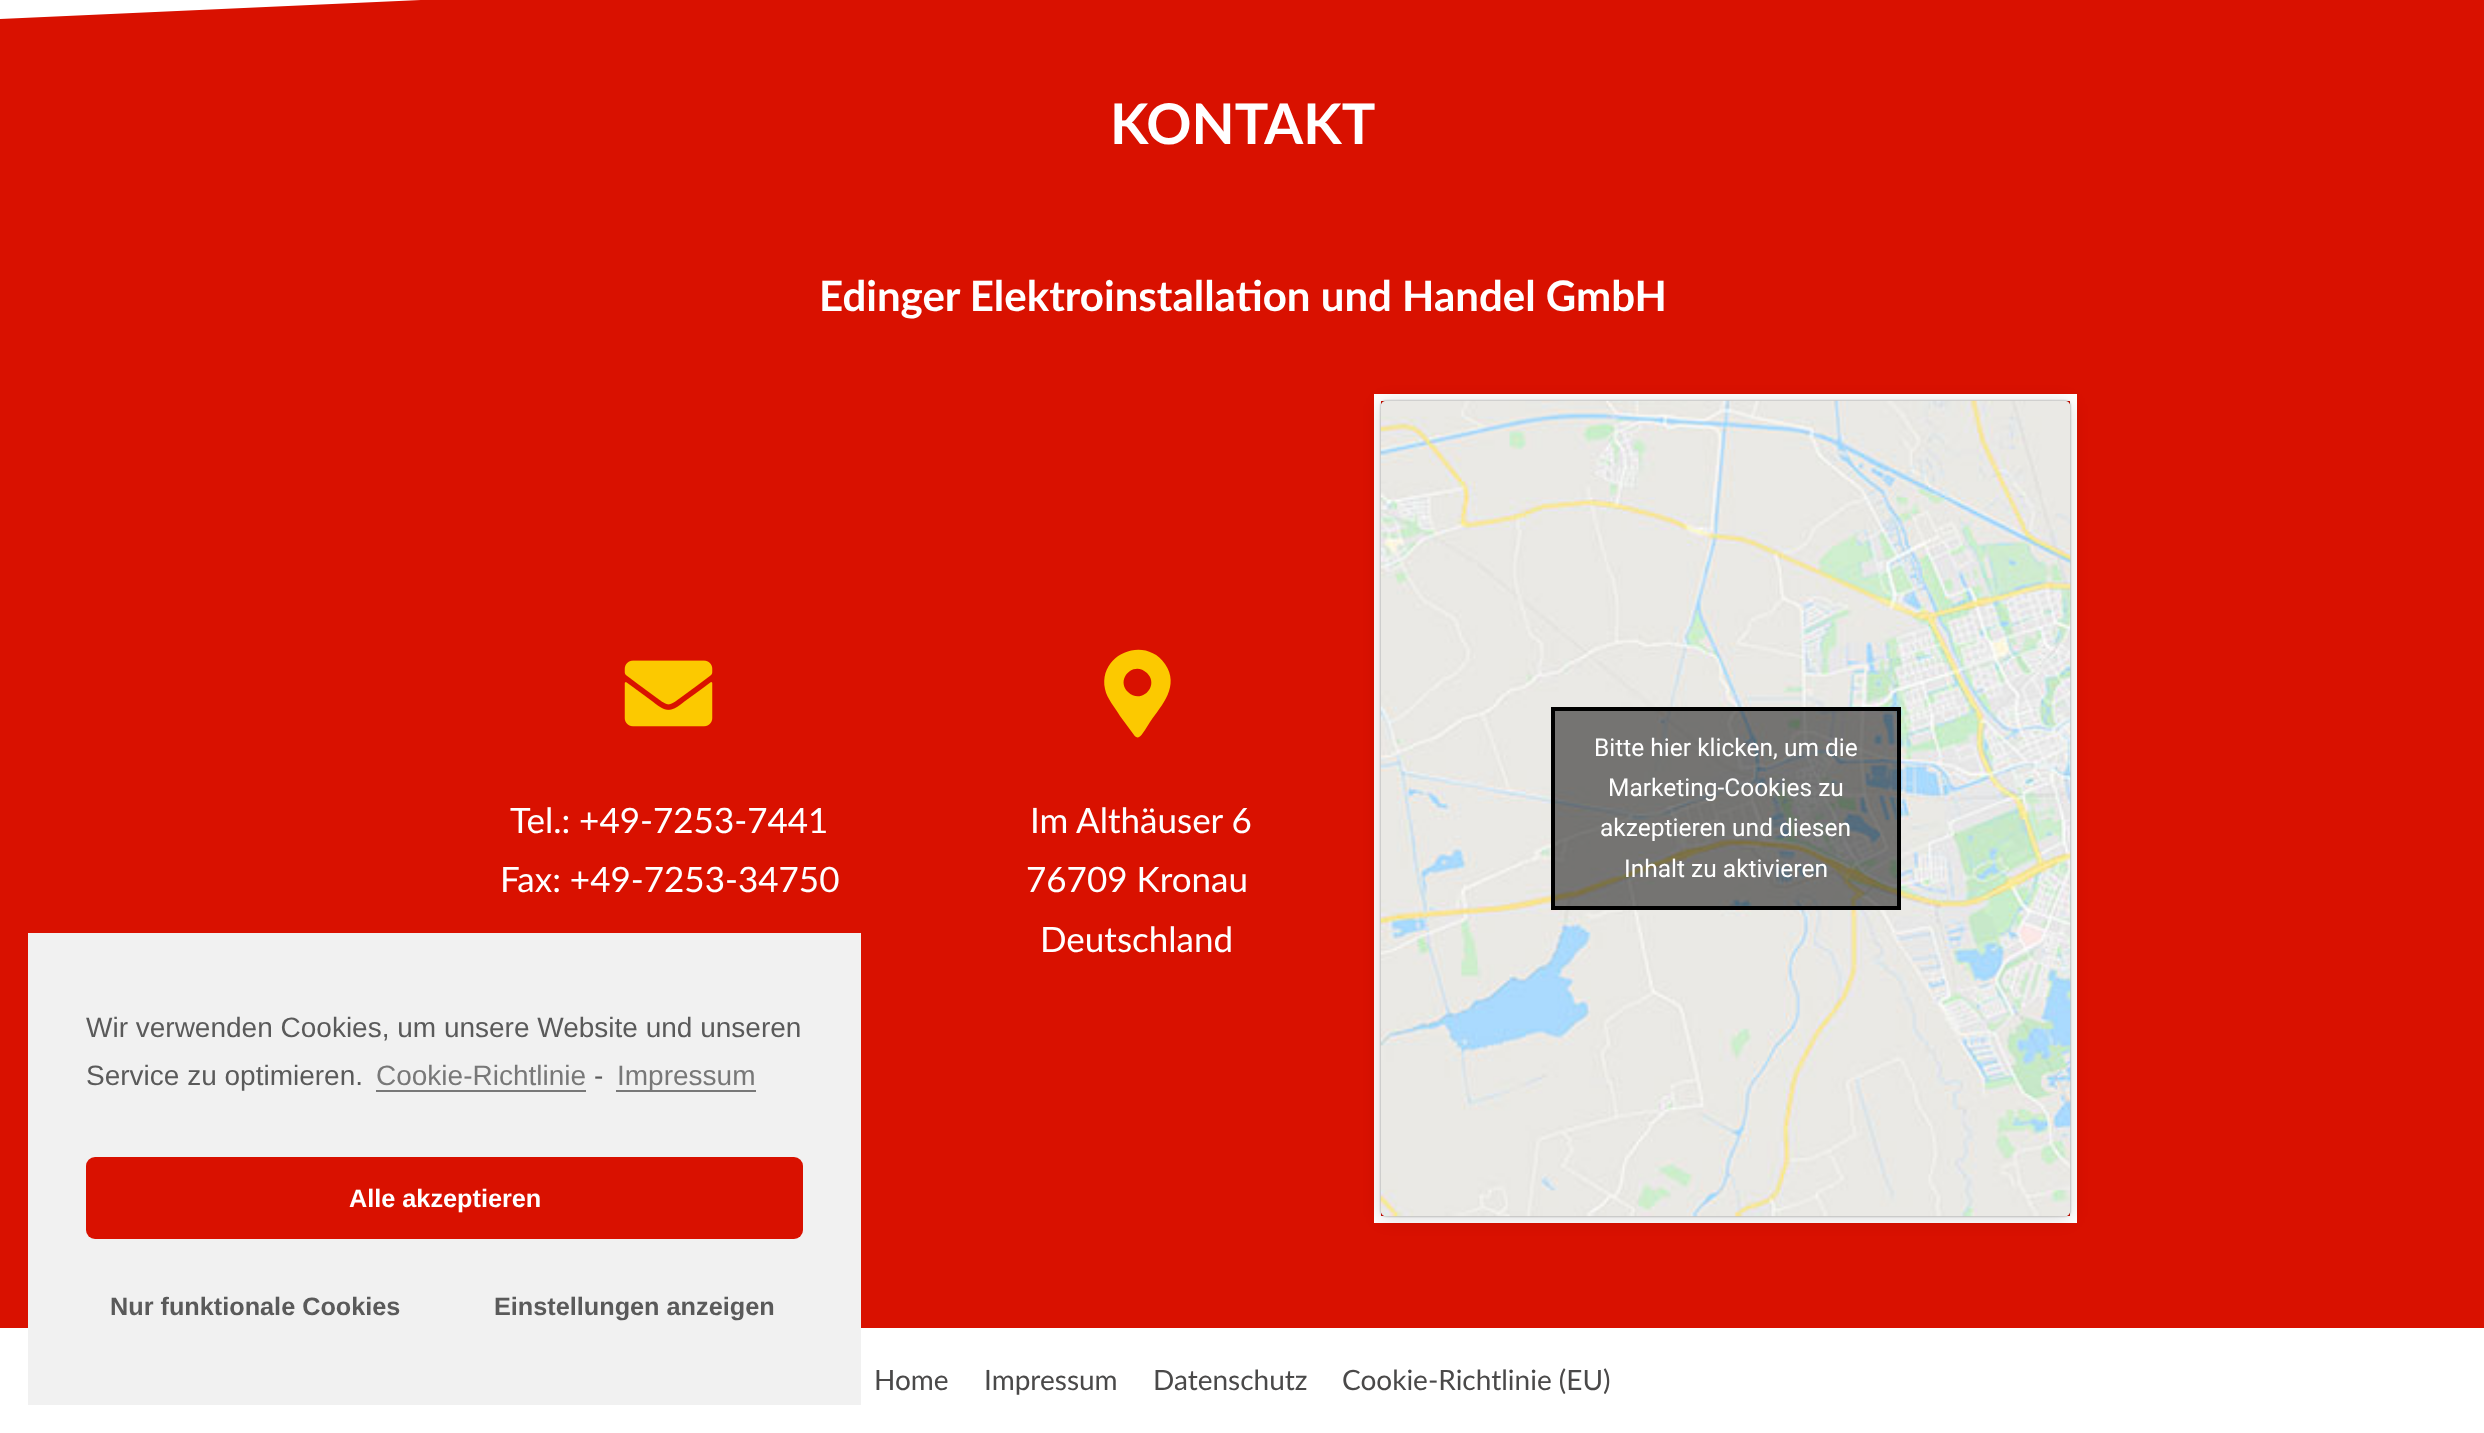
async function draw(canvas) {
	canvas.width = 2484;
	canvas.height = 1433;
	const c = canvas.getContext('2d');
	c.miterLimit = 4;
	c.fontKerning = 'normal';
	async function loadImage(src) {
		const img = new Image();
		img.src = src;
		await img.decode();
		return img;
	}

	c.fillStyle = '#fff';
	c.fillRect(0, 0, 2484, 1433);
	c.fillStyle = '#d91100';
	c.fillRect(0, 0, 2484, 1328);
	c.fillStyle = '#f1f1f1';
	c.fillRect(28, 933, 833, 472);
	c.font = '28px Liberation Sans';
	c.fillStyle = '#5a5a5a';
	c.fillText('Wir verwenden Cookies, um unsere Website und unseren', 86, 1037);
	c.fillText('Service zu optimieren.', 86, 1085);
	c.fillStyle = '#787878';
	c.fillText('Cookie-Richtlinie', 376, 1085);
	c.fillRect(376, 1090, 210, 2);
	c.fillStyle = '#5a5a5a';
	c.fillText('-', 594, 1085);
	c.fillStyle = '#787878';
	c.fillRect(616, 1090, 140, 2);
	c.fillText('Impressum', 617, 1085);
	c.fillStyle = '#d91100';
	c.beginPath();
	c.roundRect(86, 1157, 717, 82, 9);
	c.fill();
	c.font = 'bold 25.25px Liberation Sans';
	c.fillStyle = '#fff';
	c.fillText('Alle akzeptieren', 349, 1207);
	c.fillStyle = '#5a5a5a';
	c.fillText('Nur funktionale Cookies', 110, 1315);
	c.fillText('Einstellungen anzeigen', 494, 1315);
	c.fillStyle = '#fff';
	c.beginPath();
	c.moveTo(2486, -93);
	c.lineTo(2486, -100);
	c.lineTo(-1, -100);
	c.lineTo(-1, 19);
	c.closePath();
	c.fill();
	c.font = 'bold 56px Lato';
	c.fillText('KONTAKT', 1110, 144);
	c.font = 'bold 42px Lato';
	c.fillText('Edinger Elektroinstallation und Handel GmbH', 819, 311);
	c.drawImage(await loadImage('img1.png'), 624, 660, 89, 67);
	c.font = '35px Lato';
	c.fillText('Tel.: +49-7253-7441', 510, 833);
	c.fillText('Fax: +49-7253-34750', 500, 892);
	c.fillStyle = '#fcc900';
	c.beginPath();
	c.moveTo(1134, 735);
	c.lineTo(1120, 716);
	c.bezierCurveTo(1115, 707, 1107, 699, 1105, 689);
	c.bezierCurveTo(1098, 654, 1145, 635, 1165, 664);
	c.bezierCurveTo(1180, 686, 1162, 705, 1150, 722);
	c.bezierCurveTo(1148, 725, 1142, 736, 1139, 737);
	c.bezierCurveTo(1138, 738, 1135, 737, 1134, 735);
	c.closePath();
	c.moveTo(1128, 692);
	c.bezierCurveTo(1141, 705, 1160, 686, 1147, 673);
	c.bezierCurveTo(1134, 660, 1115, 679, 1128, 692);
	c.closePath();
	c.fill();
	c.fillStyle = '#fff';
	for (const [text, x, y] of [
		['Im Althäuser 6', 1030, 833],
		['76709 Kronau', 1026, 892],
		['Deutschland', 1040, 952],
	]) {
		c.fillText(text, x, y);
	}
	c.strokeStyle = '#fff';
	c.lineWidth = 7;
	c.strokeRect(1377.5, 397.5, 696, 822);
	c.fillStyle = '#00000026';
	c.filter = 'blur(9px)';
	c.beginPath();
	c.roundRect(1381, 403, 689, 815, 5);
	c.fill();
	c.filter = 'none';
	c.fillStyle = '#00000080';
	c.filter = 'blur(1px)';
	c.beginPath();
	c.roundRect(1381, 401, 689, 815, 5);
	c.fill();
	c.filter = 'none';
	c.drawImage(await loadImage('img2.png'), 1380, 400, 691, 817);
	c.beginPath();
	c.rect(1553, 709, 346, 199);
	c.fill();
	c.strokeStyle = '#000';
	c.lineWidth = 4;
	c.stroke();
	c.font = '24.5px Roboto';
	c.fillStyle = '#fff';
	for (const [text, x, y] of [
		['Bitte hier klicken, um die', 1594, 756],
		['Marketing-Cookies zu', 1608, 796],
		['akzeptieren und diesen', 1600, 836],
		['Inhalt zu aktivieren', 1624, 877],
	]) {
		c.fillText(text, x, y);
	}
	c.font = '28px Lato';
	c.fillStyle = '#4a4949';
	for (const [text, x, y] of [
		['Home', 874, 1390],
		['Impressum', 984, 1390],
		['Datenschutz', 1153, 1390],
		['Cookie-Richtlinie (EU)', 1342, 1390],
	]) {
		c.fillText(text, x, y);
	}
}

draw(document.querySelector('canvas'));
